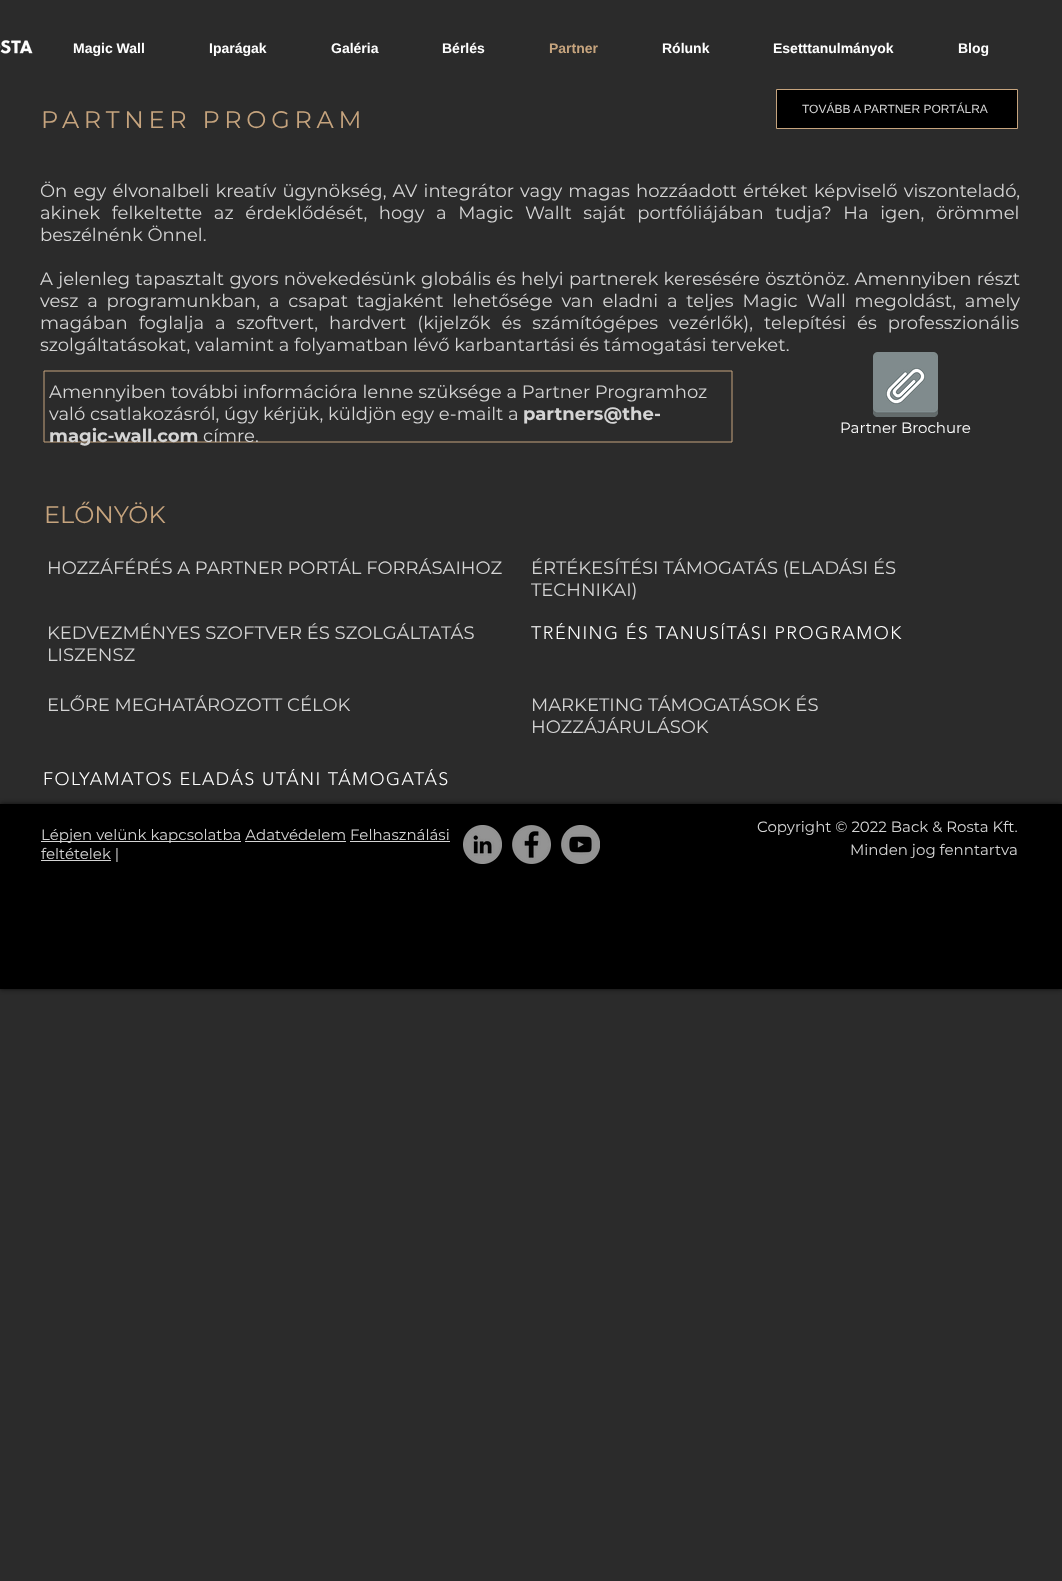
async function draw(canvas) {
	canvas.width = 1062;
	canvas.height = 1581;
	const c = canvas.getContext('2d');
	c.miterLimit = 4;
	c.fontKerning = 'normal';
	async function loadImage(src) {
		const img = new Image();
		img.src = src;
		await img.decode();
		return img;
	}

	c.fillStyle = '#2b2b2b';
	c.fillRect(0, 0, 1062, 1581);
	c.drawImage(await loadImage('img1.png'), 0, 40, 33, 14);
	c.font = 'bold 14px Liberation Sans';
	c.fillStyle = '#fff';
	for (const [text, x, y] of [
		['Magic Wall', 73, 53],
		['Iparágak', 209, 53],
		['Galéria', 331, 53],
		['Bérlés', 442, 53],
	]) {
		c.fillText(text, x, y);
	}
	c.fillStyle = '#c6a47e';
	c.fillText('Partner', 549, 53);
	c.fillStyle = '#fff';
	for (const [text, x, y] of [
		['Rólunk', 662, 53],
		['Esetttanulmányok', 773, 53],
		['Blog', 958, 53],
	]) {
		c.fillText(text, x, y);
	}
	c.fillStyle = '#000';
	c.beginPath();
	c.rect(776.5, 89.5, 241, 39);
	c.fill();
	c.strokeStyle = '#c6a47e';
	c.stroke();
	c.font = '12px Liberation Sans';
	c.fillStyle = '#d5d5d5';
	c.fillText('TOVÁBB A PARTNER PORTÁLRA', 802, 113);
	c.letterSpacing = '4.75px';
	c.font = '24px Montserrat';
	c.fillStyle = '#c6a47e';
	c.fillText('PARTNER PROGRAM', 41, 128);
	c.letterSpacing = '0px';
	c.wordSpacing = '1.4px';
	c.font = '18px Montserrat';
	c.fillStyle = '#d5d5d5';
	c.fillText('Ön egy élvonalbeli kreatív ügynökség, AV integrátor vagy magas hozzáadott értéket képviselő viszonteladó,', 40, 197);
	c.wordSpacing = '6.9px';
	c.fillText('akinek felkeltette az érdeklődését, hogy a Magic Wallt saját portfóliájában tudja? Ha igen, örömmel', 40, 219);
	c.wordSpacing = '0px';
	c.fillText('beszélnénk Önnel.', 40, 241);
	c.wordSpacing = '0.6px';
	c.fillText('A jelenleg tapasztalt gyors növekedésünk globális és helyi partnerek keresésére ösztönöz. Amennyiben részt', 40, 285);
	c.wordSpacing = '4.1px';
	c.fillText('vesz a programunkban, a csapat tagjaként lehetősége van eladni a teljes Magic Wall megoldást, amely', 40, 307);
	c.wordSpacing = '6.25px';
	c.fillText('magában foglalja a szoftvert, hardvert (kijelzők és számítógépes vezérlők), telepítési és professzionális', 40, 329);
	c.wordSpacing = '0px';
	c.fillText('szolgáltatásokat, valamint a folyamatban lévő karbantartási és támogatási terveket.', 40, 351);
	c.beginPath();
	c.moveTo(732, 371);
	c.lineTo(732, 442);
	c.lineTo(44, 442);
	c.lineTo(44, 371);
	c.closePath();
	c.stroke();
	c.fillText('Amennyiben további információra lenne szüksége a Partner Programhoz', 49, 398);
	c.fillText('való csatlakozásról, úgy kérjük, küldjön egy e-mailt a', 49, 420);
	c.font = 'bold 18px Montserrat';
	c.fillText('partners@the-', 523, 420);
	c.fillText('magic-wall.com', 49, 442);
	c.font = '18px Montserrat';
	c.fillText('címre.', 203, 442);
	c.drawImage(await loadImage('img2.png'), 873, 352, 65, 65);
	c.font = '15px Montserrat';
	c.fillStyle = '#fff';
	c.fillText('Partner Brochure', 840, 433);
	c.font = '24px Montserrat';
	c.fillStyle = '#c6a47e';
	c.fillText('ELŐNYÖK', 44, 523);
	c.font = '18px Montserrat';
	c.fillStyle = '#d5d5d5';
	for (const [text, x, y] of [
		['HOZZÁFÉRÉS A PARTNER PORTÁL FORRÁSAIHOZ', 47, 574],
		['ÉRTÉKESÍTÉSI TÁMOGATÁS (ELADÁSI ÉS', 531, 574],
		['TECHNIKAI)', 531, 596],
		['KEDVEZMÉNYES SZOFTVER ÉS SZOLGÁLTATÁS', 47, 639],
		['LISZENSZ', 47, 661],
	]) {
		c.fillText(text, x, y);
	}
	c.letterSpacing = '1.45px';
	c.font = '300 18px "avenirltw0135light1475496"';
	c.fillStyle = '#fff';
	c.fillText('TRÉNING ÉS TANUSÍTÁSI PROGRAMOK', 531, 639);
	c.letterSpacing = '0px';
	c.font = '18px Montserrat';
	c.fillStyle = '#d5d5d5';
	for (const [text, x, y] of [
		['ELŐRE MEGHATÁROZOTT CÉLOK', 47, 711],
		['MARKETING TÁMOGATÁSOK ÉS', 531, 711],
		['HOZZÁJÁRULÁSOK', 531, 733],
	]) {
		c.fillText(text, x, y);
	}
	c.letterSpacing = '1.45px';
	c.font = '300 18px "avenirltw0135light1475496"';
	c.fillStyle = '#fff';
	c.fillText('FOLYAMATOS ELADÁS UTÁNI TÁMOGATÁS', 43, 785);
	c.fillStyle = '#000000b3';
	c.filter = 'blur(2.5px)';
	c.beginPath();
	c.rect(0, 804, 1062, 185);
	c.fill();
	c.filter = 'none';
	c.fillStyle = '#000';
	c.fillRect(0, 804, 1062, 185);
	c.fillStyle = '#d5d5d5';
	c.fillRect(41, 841, 200, 1);
	c.letterSpacing = '0px';
	c.font = '15px Montserrat';
	c.fillText('Lépjen velünk kapcsolatba Adatvédelem Felhasználási', 41, 840);
	for (const [x, y, w, h, color] of [
		[245, 841, 101, 1, '#d5d5d5'],
		[350, 841, 100, 1, '#d5d5d5'],
		[41, 860, 70, 1, '#d5d5d5'],
	]) {
		c.fillStyle = color;
		c.fillRect(x, y, w, h);
	}
	c.fillText('feltételek |', 41, 859);
	c.drawImage(await loadImage('img3.png'), 463, 825, 39, 39);
	c.drawImage(await loadImage('img4.png'), 512, 825, 39, 39);
	c.drawImage(await loadImage('img5.png'), 561, 825, 39, 39);
	c.fillText('Copyright © 2022 Back & Rosta Kft.', 757, 832);
	c.fillText('Minden jog fenntartva', 850, 855);
}

draw(document.querySelector('canvas'));
